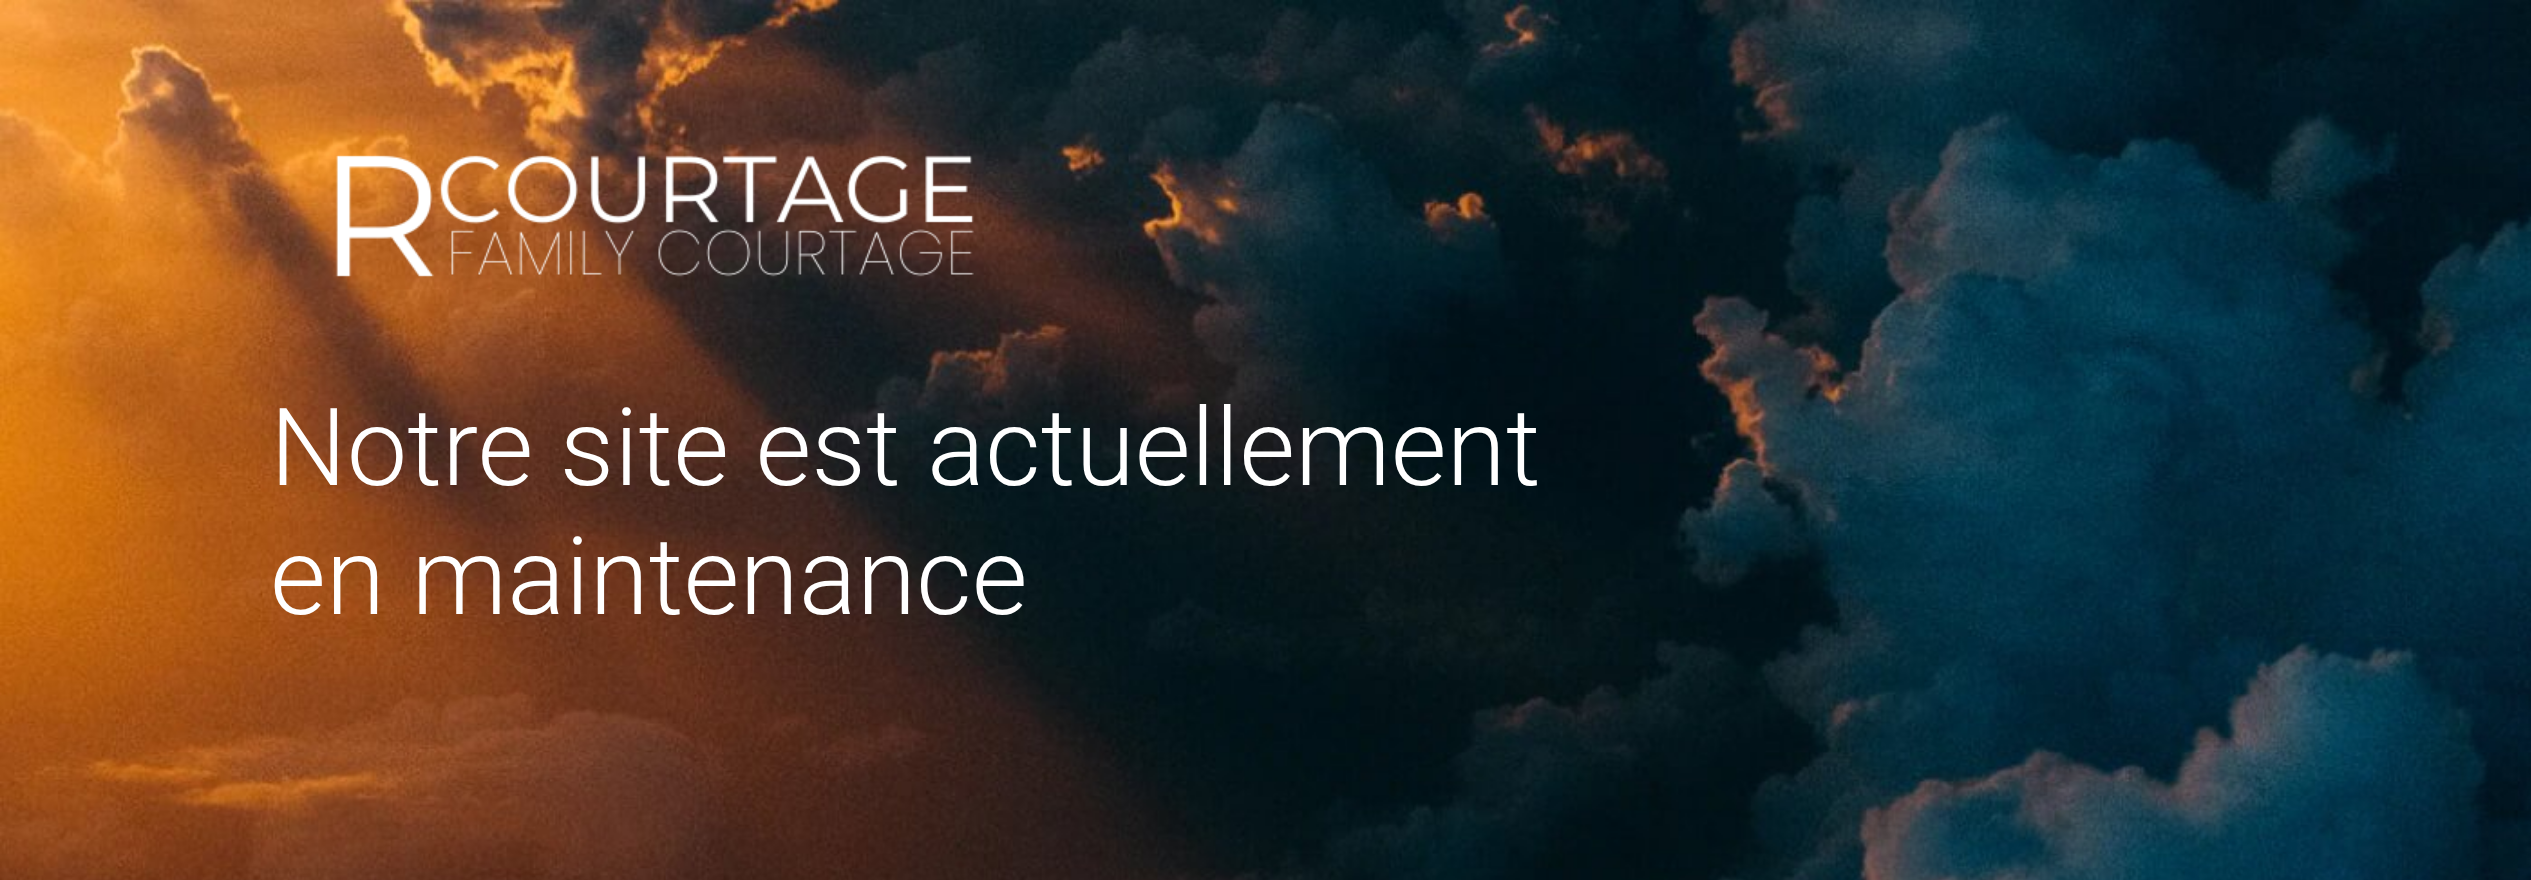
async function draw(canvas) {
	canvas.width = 2531;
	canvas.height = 880;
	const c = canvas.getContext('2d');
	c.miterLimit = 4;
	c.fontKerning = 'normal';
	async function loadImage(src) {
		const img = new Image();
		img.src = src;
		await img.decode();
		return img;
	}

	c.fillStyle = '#fff';
	c.fillRect(0, 0, 2531, 880);
	c.drawImage(await loadImage('img1.png'), 0, 0, 2531, 880);
	c.drawImage(await loadImage('img2.png'), 335, 155, 639, 122);
	c.font = '300 108px Roboto';
	c.fillText('Notre site est actuellement', 270, 485);
	c.fillText('en maintenance', 270, 614);
}

draw(document.querySelector('canvas'));
